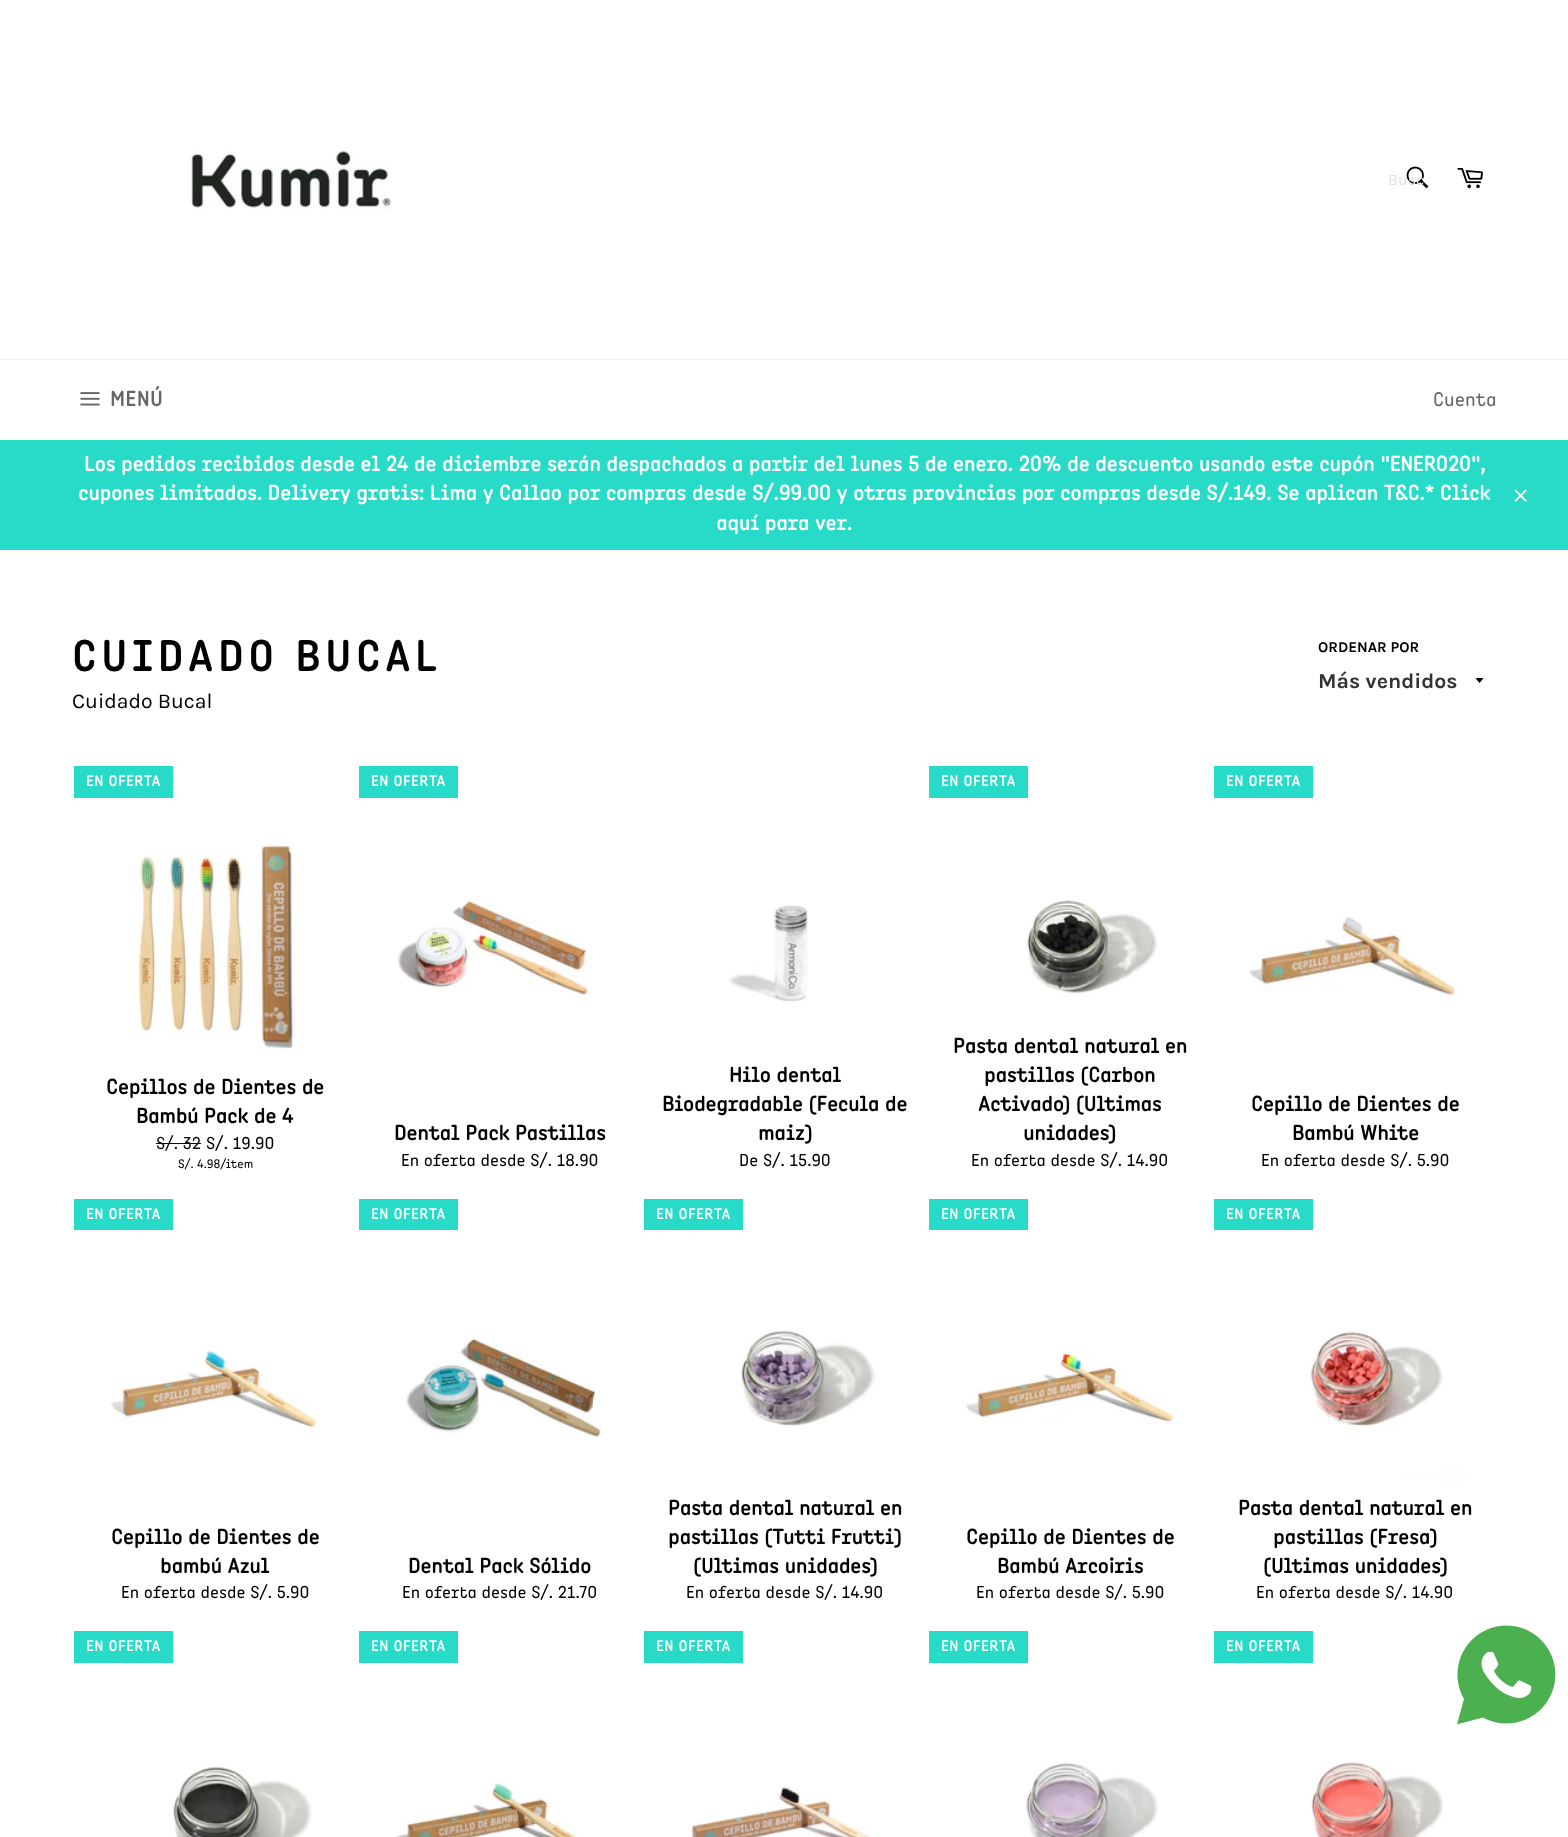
async function draw(canvas) {
	canvas.width = 1568;
	canvas.height = 1837;
	const c = canvas.getContext('2d');
	c.miterLimit = 4;
	c.fontKerning = 'normal';
	async function loadImage(src) {
		const img = new Image();
		img.src = src;
		await img.decode();
		return img;
	}

	c.fillStyle = '#fff';
	c.fillRect(0, 0, 1568, 1837);
	c.drawImage(await loadImage('img1.png'), 189, 151, 203, 59);
	c.drawImage(await loadImage('img2.png'), 1406, 166, 23, 23);
	c.font = '16px Karla';
	c.fillStyle = '#dfdfdf';
	c.fillText('Busc', 1388, 185);
	c.drawImage(await loadImage('img3.png'), 1457, 168, 26, 21);
	c.fillStyle = '#f2f2f2';
	c.fillRect(0, 359, 1568, 1);
	c.drawImage(await loadImage('img4.png'), 80, 392, 20, 14);
	c.letterSpacing = '0.75px';
	c.font = 'bold 21.25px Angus';
	c.fillStyle = '#666';
	c.fillText('MENÚ', 110, 406);
	c.letterSpacing = '0px';
	c.font = '20px Angus';
	c.fillText('Cuenta', 1433, 406);
	c.fillStyle = '#28dbc9';
	c.fillRect(0, 440, 1568, 110);
	c.font = 'bold 21.25px Angus';
	c.fillStyle = '#fff';
	for (const [text, x, y] of [
		['Los pedidos recibidos desde el 24 de diciembre serán despachados a partir del lunes 5 de enero. 20% de descuento usando este cupón "ENERO20",', 84, 471],
		['cupones limitados. Delivery gratis: Lima y Callao por compras desde S/.99.00 y otras provincias por compras desde S/.149. Se aplican T&C.* Click', 78, 500],
		['aquí para ver.', 716, 530],
	]) {
		c.fillText(text, x, y);
	}
	c.drawImage(await loadImage('img5.png'), 1514, 489, 13, 13);
	c.letterSpacing = '4.5px';
	c.font = '500 45px Angus';
	c.fillStyle = '#000';
	c.fillText('CUIDADO BUCAL', 72, 671);
	c.letterSpacing = '0px';
	c.font = '21.25px Karla';
	c.fillText('Cuidado Bucal', 72, 708);
	c.font = 'bold 15px Karla';
	c.fillText('ORDENAR POR', 1318, 652);
	c.save();
	c.beginPath();
	c.rect(1475, 678, 10, 6);
	c.clip();
	c.beginPath();
	c.moveTo(1475, 677.5);
	c.lineTo(1479.5, 683);
	c.lineTo(1484, 677.5);
	c.closePath();
	c.fill();
	c.restore();
	c.font = 'bold 21.25px Karla';
	c.fillStyle = '#333';
	c.fillText('Más vendidos', 1318, 688);
	c.fillStyle = '#28dbc9';
	c.fillRect(74, 766, 99, 32);
	c.letterSpacing = '0.75px';
	c.font = 'bold 15px Angus';
	c.fillStyle = '#fff';
	c.fillText('EN OFERTA', 86, 786);
	c.drawImage(await loadImage('img6.png'), 138, 844, 158, 206);
	c.letterSpacing = '0px';
	c.font = 'bold 21.25px Angus';
	c.fillStyle = '#000';
	c.fillText('Cepillos de Dientes de', 106, 1094);
	c.fillText('Bambú Pack de 4', 136, 1123);
	c.font = '17.5px Angus';
	c.fillStyle = '#0d0d0d';
	c.fillText('S/. 32', 156, 1149);
	c.fillRect(156, 1143, 45, 1);
	c.fillStyle = '#000';
	c.fillText('S/. 19.90', 206, 1149);
	c.font = '12.5px Angus';
	c.fillText('S/. 4.98/item', 178, 1168);
	c.fillStyle = '#28dbc9';
	c.fillRect(359, 766, 99, 32);
	c.letterSpacing = '0.75px';
	c.font = 'bold 15px Angus';
	c.fillStyle = '#fff';
	c.fillText('EN OFERTA', 371, 786);
	c.drawImage(await loadImage('img7.png'), 397, 900, 191, 95);
	c.letterSpacing = '0px';
	c.font = 'bold 21.25px Angus';
	c.fillStyle = '#000';
	c.fillText('Dental Pack Pastillas', 394, 1140);
	c.font = '17.5px Angus';
	c.fillText('En oferta desde S/. 18.90', 401, 1166);
	c.drawImage(await loadImage('img8.png'), 729, 904, 79, 98);
	c.font = 'bold 21.25px Angus';
	for (const [text, x, y] of [
		['Hilo dental', 729, 1082],
		['Biodegradable (Fecula de', 662, 1111],
		['maiz)', 758, 1140],
	]) {
		c.fillText(text, x, y);
	}
	c.font = '17.5px Angus';
	c.fillText('De S/. 15.90', 739, 1166);
	c.fillStyle = '#28dbc9';
	c.fillRect(929, 766, 99, 32);
	c.letterSpacing = '0.75px';
	c.font = 'bold 15px Angus';
	c.fillStyle = '#fff';
	c.fillText('EN OFERTA', 941, 786);
	c.drawImage(await loadImage('img9.png'), 1024, 899, 134, 97);
	c.letterSpacing = '0px';
	c.font = 'bold 21.25px Angus';
	c.fillStyle = '#000';
	for (const [text, x, y] of [
		['Pasta dental natural en', 953, 1053],
		['pastillas (Carbon', 984, 1082],
		['Activado) (Ultimas', 978, 1111],
		['unidades)', 1023, 1140],
	]) {
		c.fillText(text, x, y);
	}
	c.font = '17.5px Angus';
	c.fillText('En oferta desde S/. 14.90', 971, 1166);
	c.fillStyle = '#28dbc9';
	c.fillRect(1214, 766, 99, 32);
	c.letterSpacing = '0.75px';
	c.font = 'bold 15px Angus';
	c.fillStyle = '#fff';
	c.fillText('EN OFERTA', 1226, 786);
	c.drawImage(await loadImage('img10.png'), 1249, 917, 210, 84);
	c.letterSpacing = '0px';
	c.font = 'bold 21.25px Angus';
	c.fillStyle = '#000';
	c.fillText('Cepillo de Dientes de', 1251, 1111);
	c.fillText('Bambú White', 1292, 1140);
	c.font = '17.5px Angus';
	c.fillText('En oferta desde S/. 5.90', 1261, 1166);
	c.fillStyle = '#28dbc9';
	c.fillRect(74, 1199, 99, 31);
	c.letterSpacing = '0.75px';
	c.font = 'bold 15px Angus';
	c.fillStyle = '#fff';
	c.fillText('EN OFERTA', 86, 1219);
	c.drawImage(await loadImage('img11.png'), 110, 1350, 208, 78);
	c.letterSpacing = '0px';
	c.font = 'bold 21.25px Angus';
	c.fillStyle = '#000';
	c.fillText('Cepillo de Dientes de', 111, 1544);
	c.fillText('bambú Azul', 160, 1573);
	c.font = '17.5px Angus';
	c.fillText('En oferta desde S/. 5.90', 121, 1598);
	c.fillStyle = '#28dbc9';
	c.fillRect(359, 1199, 99, 31);
	c.letterSpacing = '0.75px';
	c.font = 'bold 15px Angus';
	c.fillStyle = '#fff';
	c.fillText('EN OFERTA', 371, 1219);
	c.drawImage(await loadImage('img12.png'), 406, 1336, 198, 106);
	c.letterSpacing = '0px';
	c.font = 'bold 21.25px Angus';
	c.fillStyle = '#000';
	c.fillText('Dental Pack Sólido', 408, 1573);
	c.font = '17.5px Angus';
	c.fillText('En oferta desde S/. 21.70', 402, 1598);
	c.fillStyle = '#28dbc9';
	c.fillRect(644, 1199, 99, 31);
	c.letterSpacing = '0.75px';
	c.font = 'bold 15px Angus';
	c.fillStyle = '#fff';
	c.fillText('EN OFERTA', 656, 1219);
	c.drawImage(await loadImage('img13.png'), 741, 1330, 135, 99);
	c.letterSpacing = '0px';
	c.font = 'bold 21.25px Angus';
	c.fillStyle = '#000';
	for (const [text, x, y] of [
		['Pasta dental natural en', 668, 1515],
		['pastillas (Tutti Frutti)', 668, 1544],
		['(Ultimas unidades)', 693, 1573],
	]) {
		c.fillText(text, x, y);
	}
	c.font = '17.5px Angus';
	c.fillText('En oferta desde S/. 14.90', 686, 1598);
	c.fillStyle = '#28dbc9';
	c.fillRect(929, 1199, 99, 31);
	c.letterSpacing = '0.75px';
	c.font = 'bold 15px Angus';
	c.fillStyle = '#fff';
	c.fillText('EN OFERTA', 941, 1219);
	c.drawImage(await loadImage('img14.png'), 966, 1350, 208, 74);
	c.letterSpacing = '0px';
	c.font = 'bold 21.25px Angus';
	c.fillStyle = '#000';
	c.fillText('Cepillo de Dientes de', 966, 1544);
	c.fillText('Bambú Arcoiris', 997, 1573);
	c.font = '17.5px Angus';
	c.fillText('En oferta desde S/. 5.90', 976, 1598);
	c.fillStyle = '#28dbc9';
	c.fillRect(1214, 1199, 99, 31);
	c.letterSpacing = '0.75px';
	c.font = 'bold 15px Angus';
	c.fillStyle = '#fff';
	c.fillText('EN OFERTA', 1226, 1219);
	c.drawImage(await loadImage('img15.png'), 1309, 1330, 157, 151);
	c.letterSpacing = '0px';
	c.font = 'bold 21.25px Angus';
	c.fillStyle = '#000';
	for (const [text, x, y] of [
		['Pasta dental natural en', 1238, 1515],
		['pastillas (Fresa)', 1273, 1544],
		['(Ultimas unidades)', 1263, 1573],
	]) {
		c.fillText(text, x, y);
	}
	c.font = '17.5px Angus';
	c.fillText('En oferta desde S/. 14.90', 1256, 1598);
	c.fillStyle = '#28dbc9';
	c.fillRect(74, 1631, 99, 32);
	c.letterSpacing = '0.75px';
	c.font = 'bold 15px Angus';
	c.fillStyle = '#fff';
	c.fillText('EN OFERTA', 86, 1651);
	c.drawImage(await loadImage('img16.png'), 173, 1767, 139, 70);
	c.fillStyle = '#28dbc9';
	c.fillRect(359, 1631, 99, 32);
	c.fillStyle = '#fff';
	c.fillText('EN OFERTA', 371, 1651);
	c.drawImage(await loadImage('img17.png'), 396, 1780, 181, 57);
	c.fillStyle = '#28dbc9';
	c.fillRect(644, 1631, 99, 32);
	c.fillStyle = '#fff';
	c.fillText('EN OFERTA', 656, 1651);
	c.drawImage(await loadImage('img18.png'), 686, 1787, 185, 50);
	c.fillStyle = '#28dbc9';
	c.fillRect(929, 1631, 99, 32);
	c.fillStyle = '#fff';
	c.fillText('EN OFERTA', 941, 1651);
	c.drawImage(await loadImage('img19.png'), 1024, 1762, 134, 75);
	c.fillStyle = '#28dbc9';
	c.fillRect(1214, 1631, 99, 32);
	c.fillStyle = '#fff';
	c.fillText('EN OFERTA', 1226, 1651);
	c.drawImage(await loadImage('img20.png'), 1309, 1761, 135, 76);
	c.drawImage(await loadImage('img21.png'), 1457, 1625, 99, 100);
}

draw(document.querySelector('canvas'));
